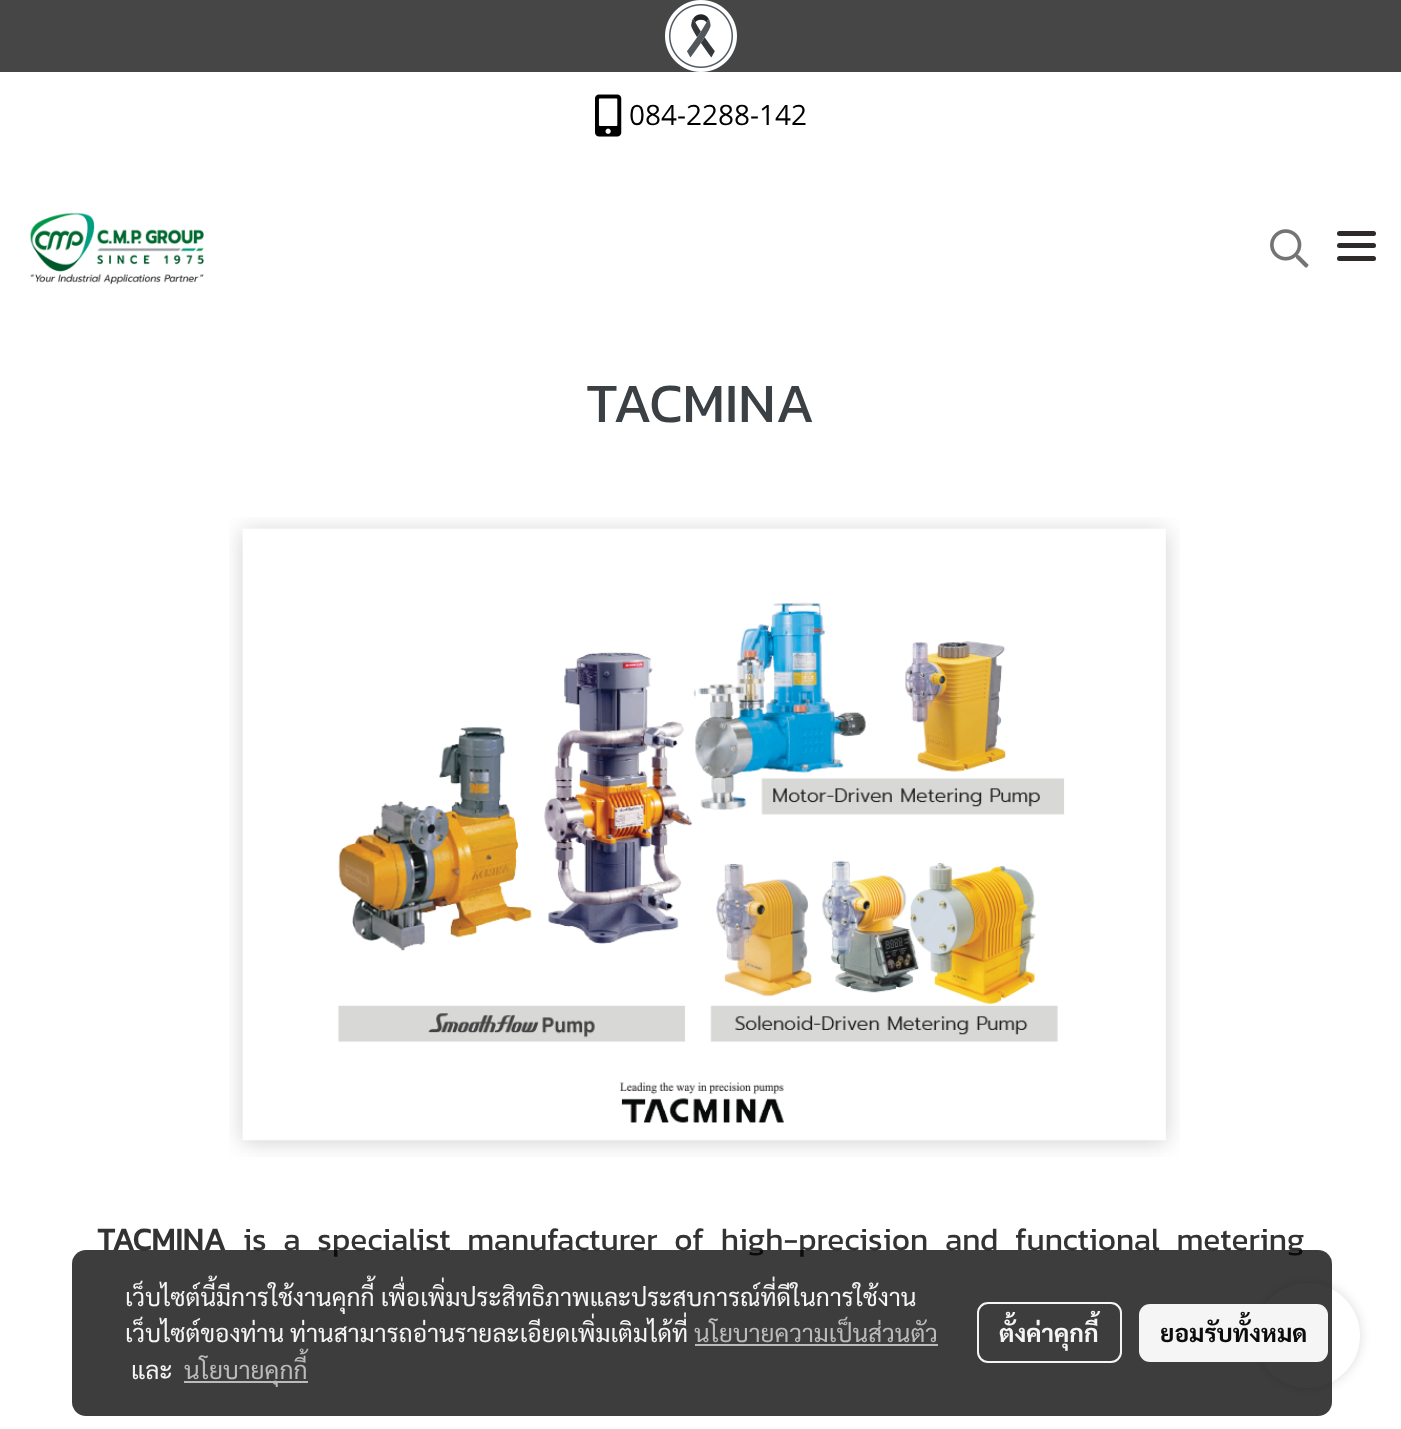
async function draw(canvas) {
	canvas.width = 1401;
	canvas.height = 1429;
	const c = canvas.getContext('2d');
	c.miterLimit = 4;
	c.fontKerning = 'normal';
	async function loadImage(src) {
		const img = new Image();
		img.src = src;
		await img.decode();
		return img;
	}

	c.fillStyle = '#fff';
	c.fillRect(0, 0, 1401, 1429);
	c.fillStyle = '#464646';
	c.fillRect(0, 0, 1401, 72);
	c.drawImage(await loadImage('img1.png'), 665, 0, 72, 72);
	c.drawImage(await loadImage('img2.png'), 595, 94, 27, 43);
	c.font = '28px Open Sans';
	c.fillStyle = '#000';
	c.fillText('084-2288-142', 629, 125);
	c.drawImage(await loadImage('img3.png'), 30, 212, 174, 73);
	c.drawImage(await loadImage('img4.png'), 1270, 229, 39, 39);
	c.fillStyle = '#2d2a29';
	c.beginPath();
	c.roundRect(1337, 243, 39, 5, 2.5);
	c.fill();
	c.beginPath();
	c.roundRect(1337, 231, 39, 5, 2.5);
	c.fill();
	c.beginPath();
	c.roundRect(1337, 256, 39, 5, 2.5);
	c.fill();
	c.font = '56px Kanit';
	c.fillStyle = '#3b4044';
	c.fillText('TACMINA', 586, 422);
	c.drawImage(await loadImage('img5.png'), 229, 517, 951, 640);
	c.font = 'bold 31.5px Kanit';
	c.fillStyle = '#333';
	c.fillText('TACMINA', 97, 1250);
	c.wordSpacing = '9.5px';
	c.font = '31.5px Kanit';
	c.fillText('is a specialist manufacturer of high-precision and functional metering', 243, 1250);
	c.fillStyle = '#00000024';
	c.filter = 'blur(6px)';
	c.beginPath();
	c.roundRect(1255, 1283, 105, 105, 52.5);
	c.fill();
	c.filter = 'none';
	c.fillStyle = '#fff';
	c.beginPath();
	c.arc(1307.5, 1335.5, 52.5, 0, 2 * Math.PI);
	c.fill();
	c.fillStyle = '#000000c2';
	c.beginPath();
	c.roundRect(72, 1250, 1260, 166, 14);
	c.fill();
	c.wordSpacing = '0px';
	c.font = '24.5px Sarabun';
	c.fillStyle = '#f5f5f5';
	c.fillText('เว็บไซต์นี้มีการใช้งานคุกกี้ เพื่อเพิ่มประสิทธิภาพและประสบการณ์ที่ดีในการใช้งาน', 125, 1306);
	c.fillText('เว็บไซต์ของท่าน ท่านสามารถอ่านรายละเอียดเพิ่มเติมได้ที่', 125, 1342);
	c.fillStyle = '#bbb';
	c.fillText('นโยบายความเป็นส่วนตัว', 694, 1342);
	c.fillStyle = '#c2c2c2f2';
	c.fillRect(695, 1344, 243, 2);
	c.fillStyle = '#f5f5f5';
	c.fillText('และ', 131, 1379);
	c.fillStyle = '#c2c2c2f2';
	c.fillRect(184, 1381, 124, 2);
	c.fillStyle = '#bbb';
	c.fillText('นโยบายคุกกี้', 184, 1379);
	c.beginPath();
	c.roundRect(978, 1303, 143, 59, 10);
	c.strokeStyle = '#fffffff2';
	c.lineWidth = 2;
	c.stroke();
	c.font = 'bold 24.5px Sarabun';
	c.fillStyle = '#f5f5f5';
	c.fillText('ตั้งค่าคุกกี้', 999, 1342);
	c.fillStyle = '#fffffff2';
	c.beginPath();
	c.roundRect(1139, 1304, 189, 58, 11);
	c.fill();
	c.fillStyle = '#0c0c0c';
	c.fillText('ยอมรับทั้งหมด', 1160, 1342);
}

draw(document.querySelector('canvas'));
